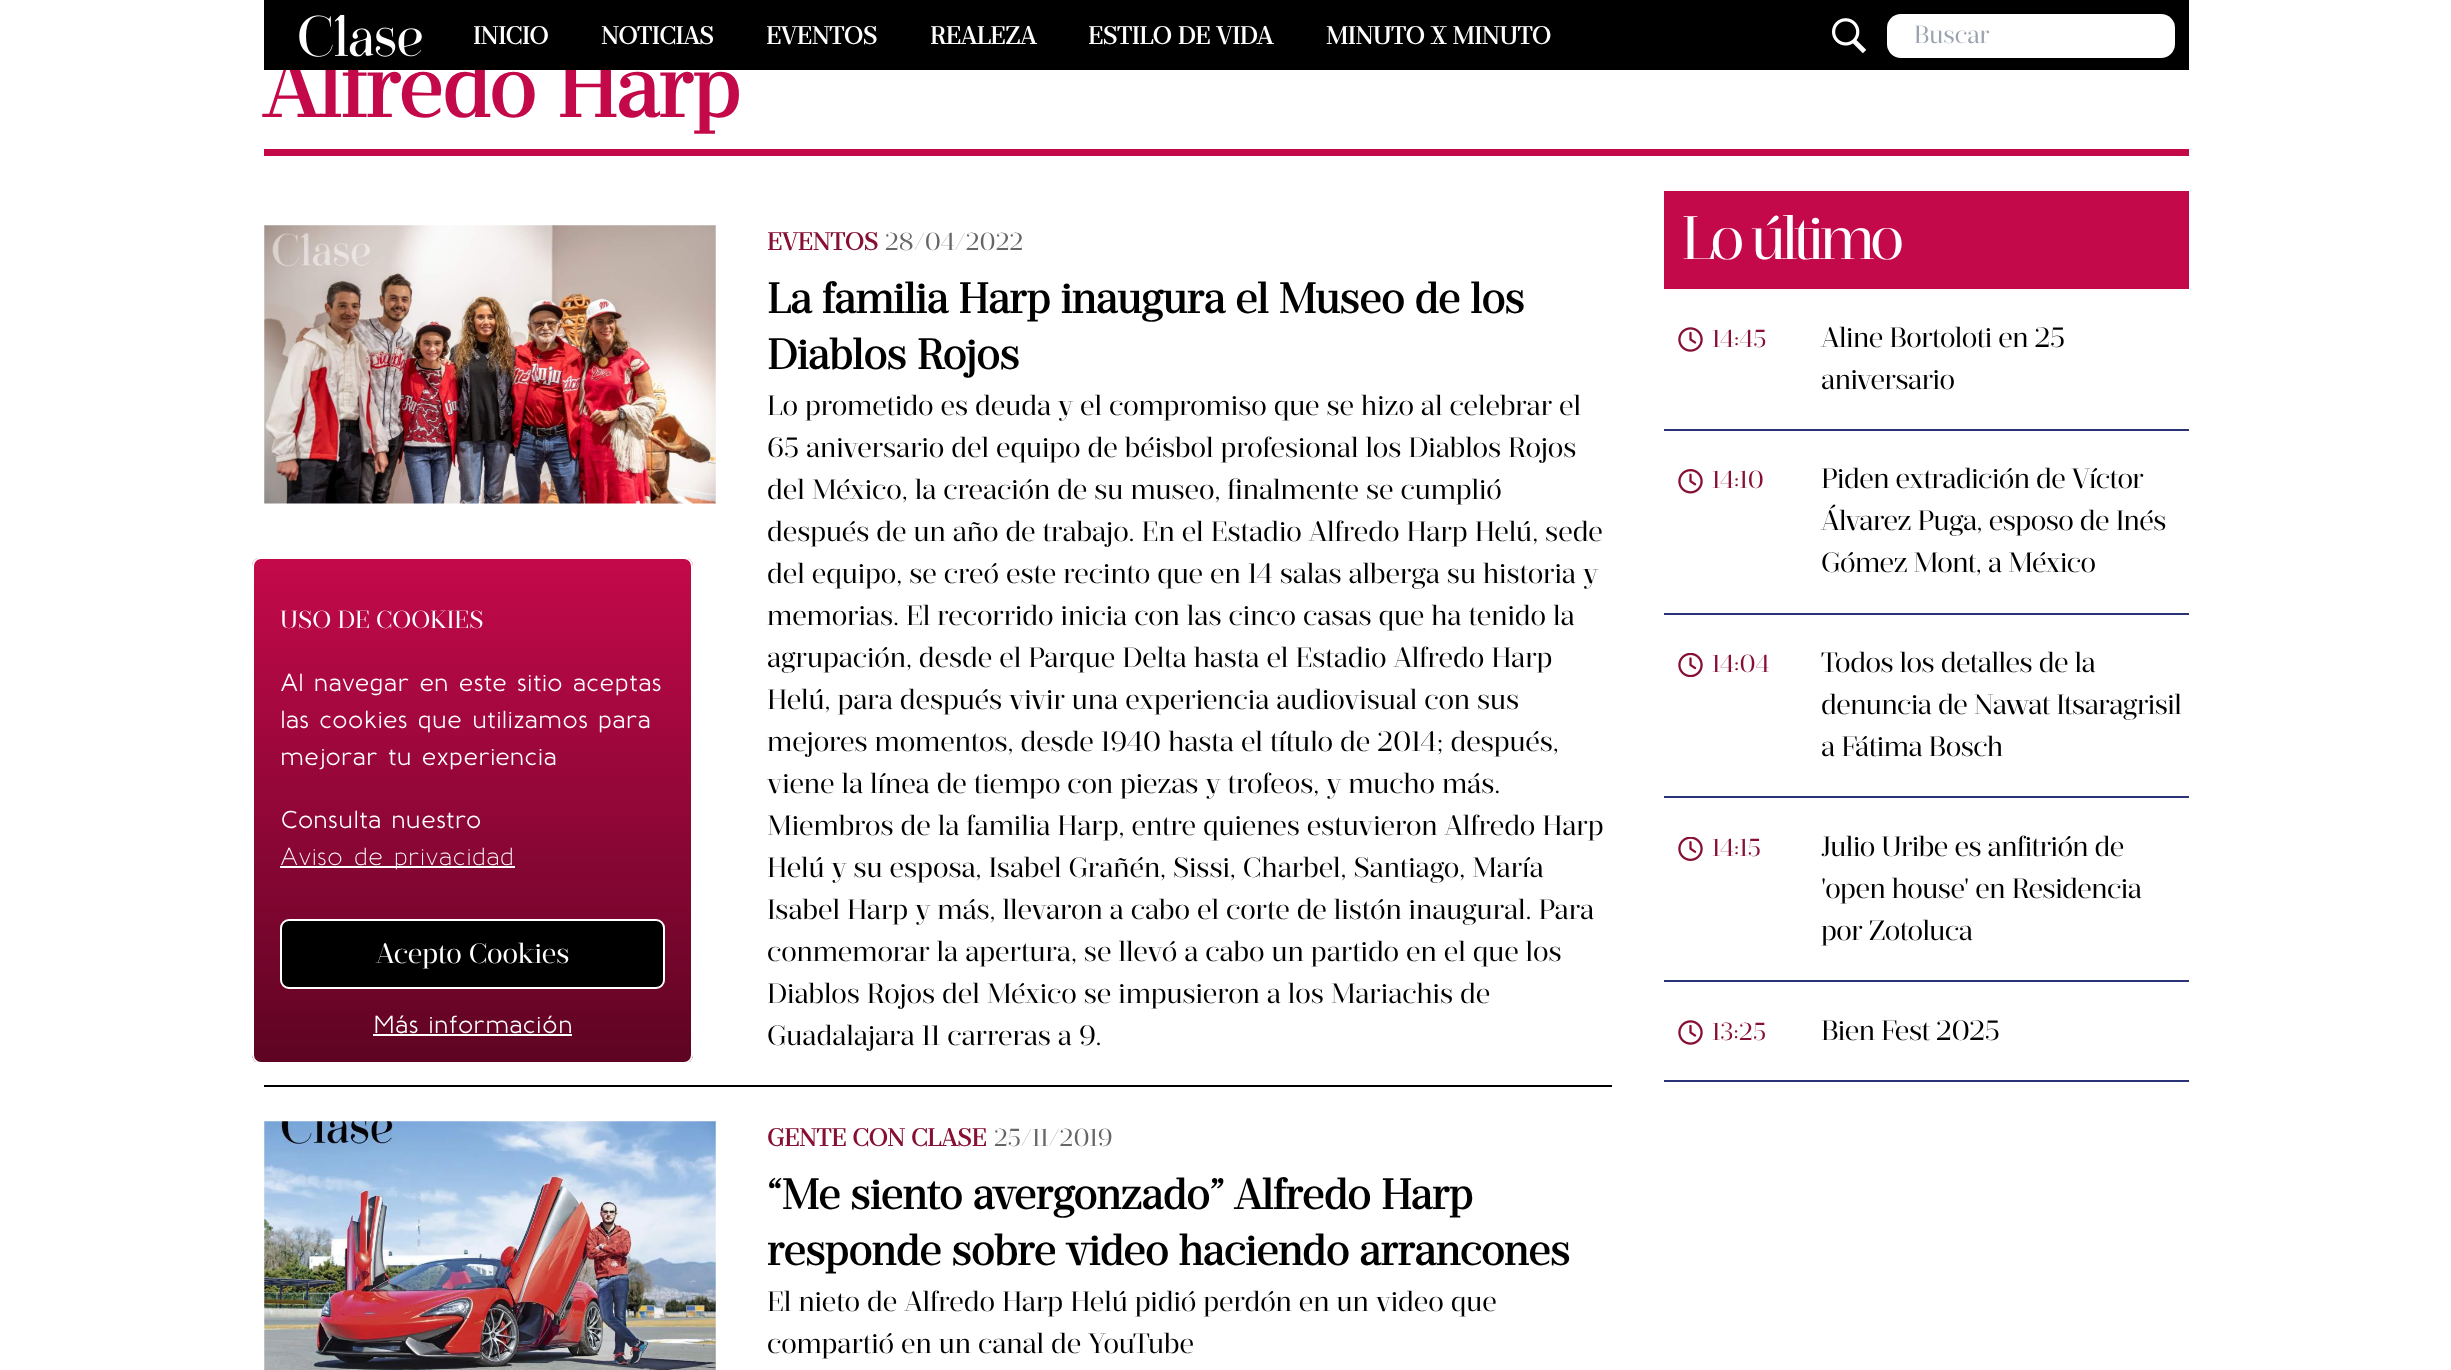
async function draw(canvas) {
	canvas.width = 2451;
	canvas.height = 1370;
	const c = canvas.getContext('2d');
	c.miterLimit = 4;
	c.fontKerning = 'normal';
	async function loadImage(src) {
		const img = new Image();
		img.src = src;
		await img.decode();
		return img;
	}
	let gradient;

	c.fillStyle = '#fff';
	c.fillRect(0, 0, 2451, 1370);
	c.font = 'bold 84px "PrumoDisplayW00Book"';
	c.fillStyle = '#c4094a';
	c.fillText('Alfredo Harp', 263, 117);
	c.fillStyle = '#000';
	c.fillRect(264, 0, 1925, 70);
	c.drawImage(await loadImage('img1.png'), 299, 14, 123, 43);
	c.font = 'bold 24.5px "PrumoDisplayW00Book"';
	c.fillStyle = '#fff';
	for (const [text, x, y] of [
		['INICIO', 473, 44],
		['NOTICIAS', 601, 44],
		['EVENTOS', 766, 44],
		['REALEZA', 930, 44],
		['ESTILO DE VIDA', 1088, 44],
		['MINUTO X MINUTO', 1326, 44],
	]) {
		c.fillText(text, x, y);
	}
	c.drawImage(await loadImage('img2.png'), 1832, 18, 35, 36);
	c.beginPath();
	c.roundRect(1887, 14, 288, 44, 14);
	c.fill();
	c.font = '24.5px "PrumoDisplayW00Book"';
	c.fillStyle = '#9ca3af';
	c.fillText('Buscar', 1914, 43);
	c.fillStyle = '#c4094a';
	c.fillRect(264, 149, 1925, 7);
	c.fillStyle = '#000';
	c.fillRect(264, 1085, 1348, 2);
	c.drawImage(await loadImage('img3.png'), 264, 225, 452, 279);
	c.font = 'bold 24.5px "PrumoDisplayW00Book"';
	c.fillStyle = '#860f33';
	c.fillText('EVENTOS', 767, 250);
	c.font = '24.5px "PrumoDisplayW00Book"';
	c.fillStyle = '#666';
	c.fillText('28/04/2022', 885, 250);
	c.font = 'bold 42px "PrumoDisplayW00Book"';
	c.fillStyle = '#000';
	c.fillText('La familia Harp inaugura el Museo de los', 767, 313);
	c.fillText('Diablos Rojos', 767, 369);
	c.font = '28px "PrumoDisplayW00Book"';
	for (const [text, x, y] of [
		['Lo prometido es deuda y el compromiso que se hizo al celebrar el', 767, 415],
		['65 aniversario del equipo de béisbol profesional los Diablos Rojos', 767, 457],
		['del México, la creación de su museo, finalmente se cumplió', 767, 499],
		['después de un año de trabajo. En el Estadio Alfredo Harp Helú, sede', 767, 541],
		['del equipo, se creó este recinto que en 14 salas alberga su historia y', 767, 583],
		['memorias. El recorrido inicia con las cinco casas que ha tenido la', 767, 625],
		['agrupación, desde el Parque Delta hasta el Estadio Alfredo Harp', 767, 667],
		['Helú, para después vivir una experiencia audiovisual con sus', 767, 709],
		['mejores momentos, desde 1940 hasta el título de 2014; después,', 767, 751],
		['viene la línea de tiempo con piezas y trofeos, y mucho más.', 767, 793],
		['Miembros de la familia Harp, entre quienes estuvieron Alfredo Harp', 767, 835],
		['Helú y su esposa, Isabel Grañén, Sissi, Charbel, Santiago, María', 767, 877],
		['Isabel Harp y más, llevaron a cabo el corte de listón inaugural. Para', 767, 919],
		['conmemorar la apertura, se llevó a cabo un partido en el que los', 767, 961],
		['Diablos Rojos del México se impusieron a los Mariachis de', 767, 1003],
		['Guadalajara 11 carreras a 9.', 767, 1045],
	]) {
		c.fillText(text, x, y);
	}
	c.drawImage(await loadImage('img4.png'), 264, 1121, 452, 249);
	c.font = 'bold 24.5px "PrumoDisplayW00Book"';
	c.fillStyle = '#860f33';
	c.fillText('GENTE CON CLASE', 767, 1146);
	c.font = '24.5px "PrumoDisplayW00Book"';
	c.fillStyle = '#666';
	c.fillText('25/11/2019', 994, 1146);
	c.font = 'bold 42px "PrumoDisplayW00Book"';
	c.fillStyle = '#000';
	c.fillText('“Me siento avergonzado” Alfredo Harp', 767, 1209);
	c.fillText('responde sobre video haciendo arrancones', 767, 1265);
	c.font = '28px "PrumoDisplayW00Book"';
	c.fillText('El nieto de Alfredo Harp Helú pidió perdón en un video que', 767, 1311);
	c.fillText('compartió en un canal de YouTube', 767, 1353);
	c.fillStyle = '#c4094a';
	c.fillRect(1664, 191, 525, 98);
	c.letterSpacing = '-4.25px';
	c.font = '61px "PrumoDisplayW00Book"';
	c.fillStyle = '#fff';
	c.fillText('Lo último', 1681, 259);
	c.fillStyle = '#2a3378';
	c.fillRect(1664, 429, 525, 2);
	c.drawImage(await loadImage('img5.png'), 1678, 327, 25, 25);
	c.letterSpacing = '0px';
	c.font = '24.5px "PrumoDisplayW00Book"';
	c.fillStyle = '#860f33';
	c.fillText('14:45', 1712, 347);
	c.letterSpacing = '-0.45px';
	c.font = '28px "PrumoDisplayW00Book"';
	c.fillStyle = '#000';
	c.fillText('Aline Bortoloti en 25', 1821, 347);
	c.fillText('aniversario', 1821, 389);
	c.fillStyle = '#2a3378';
	c.fillRect(1664, 613, 525, 2);
	c.drawImage(await loadImage('img6.png'), 1678, 469, 25, 25);
	c.letterSpacing = '0px';
	c.font = '24.5px "PrumoDisplayW00Book"';
	c.fillStyle = '#860f33';
	c.fillText('14:10', 1712, 488);
	c.letterSpacing = '-0.45px';
	c.font = '28px "PrumoDisplayW00Book"';
	c.fillStyle = '#000';
	for (const [text, x, y] of [
		['Piden extradición de Víctor', 1821, 488],
		['Álvarez Puga, esposo de Inés', 1821, 530],
		['Gómez Mont, a México', 1821, 572],
	]) {
		c.fillText(text, x, y);
	}
	c.fillStyle = '#2a3378';
	c.fillRect(1664, 796, 525, 2);
	c.drawImage(await loadImage('img7.png'), 1678, 653, 25, 24);
	c.letterSpacing = '0px';
	c.font = '24.5px "PrumoDisplayW00Book"';
	c.fillStyle = '#860f33';
	c.fillText('14:04', 1712, 672);
	c.letterSpacing = '-0.45px';
	c.font = '28px "PrumoDisplayW00Book"';
	c.fillStyle = '#000';
	for (const [text, x, y] of [
		['Todos los detalles de la', 1821, 672],
		['denuncia de Nawat Itsaragrisil', 1821, 714],
		['a Fátima Bosch', 1821, 756],
	]) {
		c.fillText(text, x, y);
	}
	c.fillStyle = '#2a3378';
	c.fillRect(1664, 980, 525, 2);
	c.drawImage(await loadImage('img8.png'), 1678, 837, 25, 24);
	c.letterSpacing = '0px';
	c.font = '24.5px "PrumoDisplayW00Book"';
	c.fillStyle = '#860f33';
	c.fillText('14:15', 1712, 856);
	c.letterSpacing = '-0.45px';
	c.font = '28px "PrumoDisplayW00Book"';
	c.fillStyle = '#000';
	for (const [text, x, y] of [
		['Julio Uribe es anfitrión de', 1821, 856],
		['\'open house\' en Residencia', 1821, 898],
		['por Zotoluca', 1821, 940],
	]) {
		c.fillText(text, x, y);
	}
	c.fillStyle = '#2a3378';
	c.fillRect(1664, 1080, 525, 2);
	c.drawImage(await loadImage('img5.png'), 1678, 1020, 25, 25);
	c.letterSpacing = '0px';
	c.font = '24.5px "PrumoDisplayW00Book"';
	c.fillStyle = '#860f33';
	c.fillText('13:25', 1712, 1040);
	c.letterSpacing = '-0.45px';
	c.font = '28px "PrumoDisplayW00Book"';
	c.fillStyle = '#000';
	c.fillText('Bien Fest 2025', 1821, 1040);
	c.save();
	c.beginPath();
	c.roundRect(252, 557, 441, 507, 9);
	c.clip();
	gradient = c.createLinearGradient(473, 558, 473, 1062);
	gradient.addColorStop(0, '#c4094a');
	gradient.addColorStop(1, '#5e0423');
	c.fillStyle = gradient;
	c.fillRect(252, 558, 441, 504);
	c.restore();
	c.beginPath();
	c.roundRect(253, 558, 439, 505, 8);
	c.strokeStyle = '#fff';
	c.lineWidth = 2;
	c.stroke();
	c.letterSpacing = '0px';
	c.font = '24.5px "PrumoDisplayW00Book"';
	c.fillStyle = '#fff';
	c.fillText('USO DE COOKIES', 280, 628);
	c.font = '500 24.5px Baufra';
	for (const [text, x, y] of [
		['Al navegar en este sitio aceptas', 280, 691],
		['las cookies que utilizamos para', 280, 728],
		['mejorar tu experiencia', 280, 765],
		['Consulta nuestro', 280, 828],
	]) {
		c.fillText(text, x, y);
	}
	c.fillRect(280, 866, 235, 2);
	c.font = '24.5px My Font';
	c.fillText('Aviso de privacidad', 280, 865);
	c.fillStyle = '#000';
	c.beginPath();
	c.roundRect(281, 920, 383, 68, 8);
	c.fill();
	c.stroke();
	c.font = '28px "PrumoDisplayW00Book"';
	c.fillStyle = '#fff';
	c.fillText('Acepto Cookies', 376, 963);
	c.font = '500 24.5px Baufra';
	c.fillText('Más información', 373, 1033);
	c.fillRect(373, 1034, 199, 2);
}

draw(document.querySelector('canvas'));
